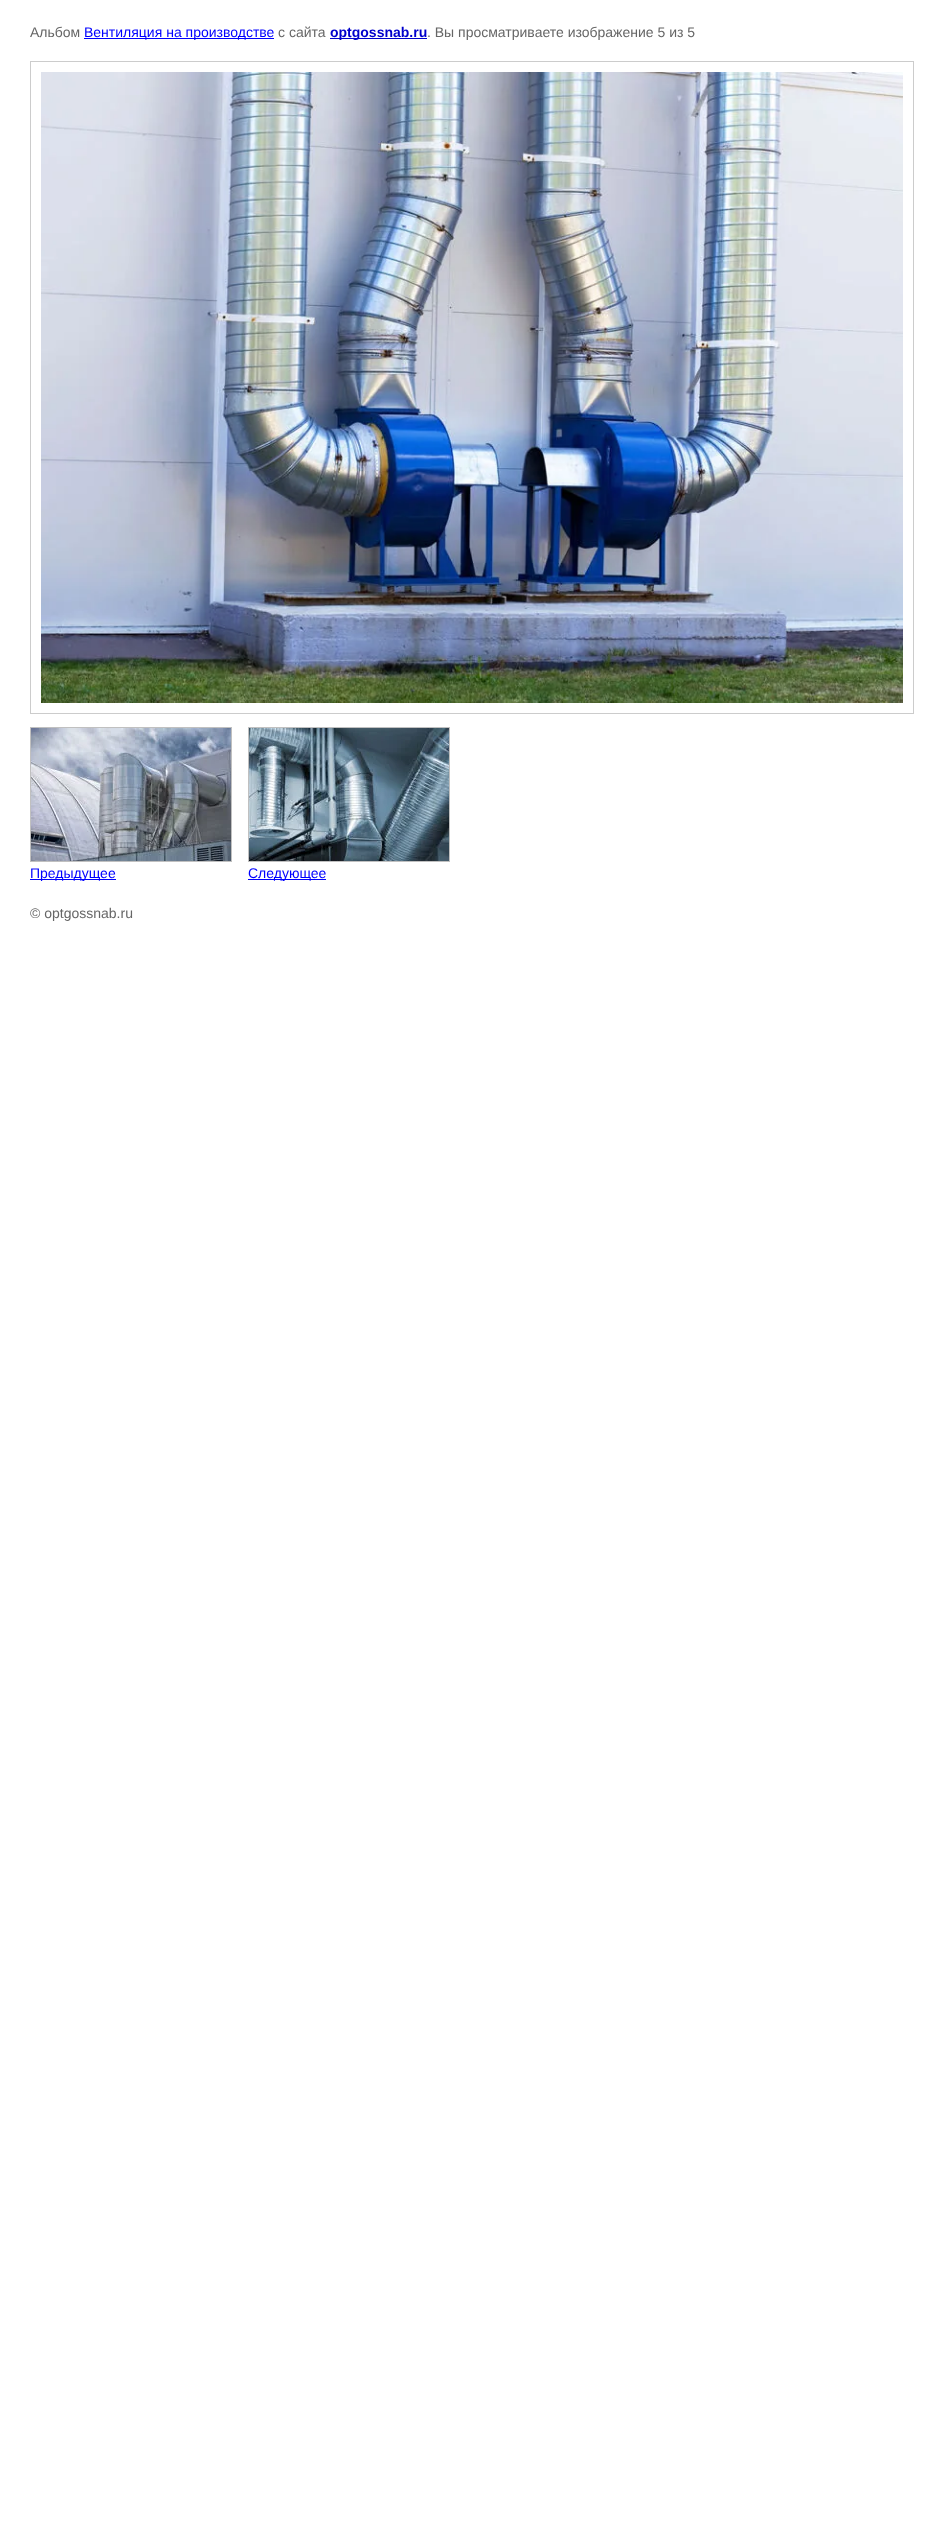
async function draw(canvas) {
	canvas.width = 944;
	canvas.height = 2525;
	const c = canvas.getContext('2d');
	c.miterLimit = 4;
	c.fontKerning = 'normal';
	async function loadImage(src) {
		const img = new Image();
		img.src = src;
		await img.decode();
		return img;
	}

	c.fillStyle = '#fff';
	c.fillRect(0, 0, 944, 2525);
	c.font = '14px Liberation Sans';
	c.fillStyle = '#666';
	c.fillText('Альбом', 30, 37);
	c.fillStyle = '#00f';
	c.fillRect(84, 38, 190, 1);
	c.fillText('Вентиляция на производстве', 84, 37);
	c.fillStyle = '#666';
	c.fillText('с сайта', 278, 37);
	c.fillStyle = '#00c';
	c.fillRect(330, 38, 97, 1);
	c.font = 'bold 14px Liberation Sans';
	c.fillText('optgossnab.ru', 330, 37);
	c.font = '14px Liberation Sans';
	c.fillStyle = '#666';
	c.fillText('. Вы просматриваете изображение 5 из 5', 427, 37);
	c.strokeStyle = '#ccc';
	c.strokeRect(30.5, 61.5, 883, 652);
	c.drawImage(await loadImage('img1.png'), 41, 72, 862, 631);
	c.strokeStyle = '#c0c0c0';
	c.strokeRect(30.5, 727.5, 201, 134);
	c.drawImage(await loadImage('img2.png'), 31, 728, 200, 133);
	c.fillStyle = '#00f';
	c.fillRect(30, 879, 86, 1);
	c.fillText('Предыдущее', 30, 878);
	c.strokeRect(248.5, 727.5, 201, 134);
	c.drawImage(await loadImage('img3.png'), 249, 728, 200, 133);
	c.fillRect(248, 879, 78, 1);
	c.fillText('Следующее', 248, 878);
	c.fillStyle = '#666';
	c.fillText('© optgossnab.ru', 30, 918);
}

draw(document.querySelector('canvas'));
